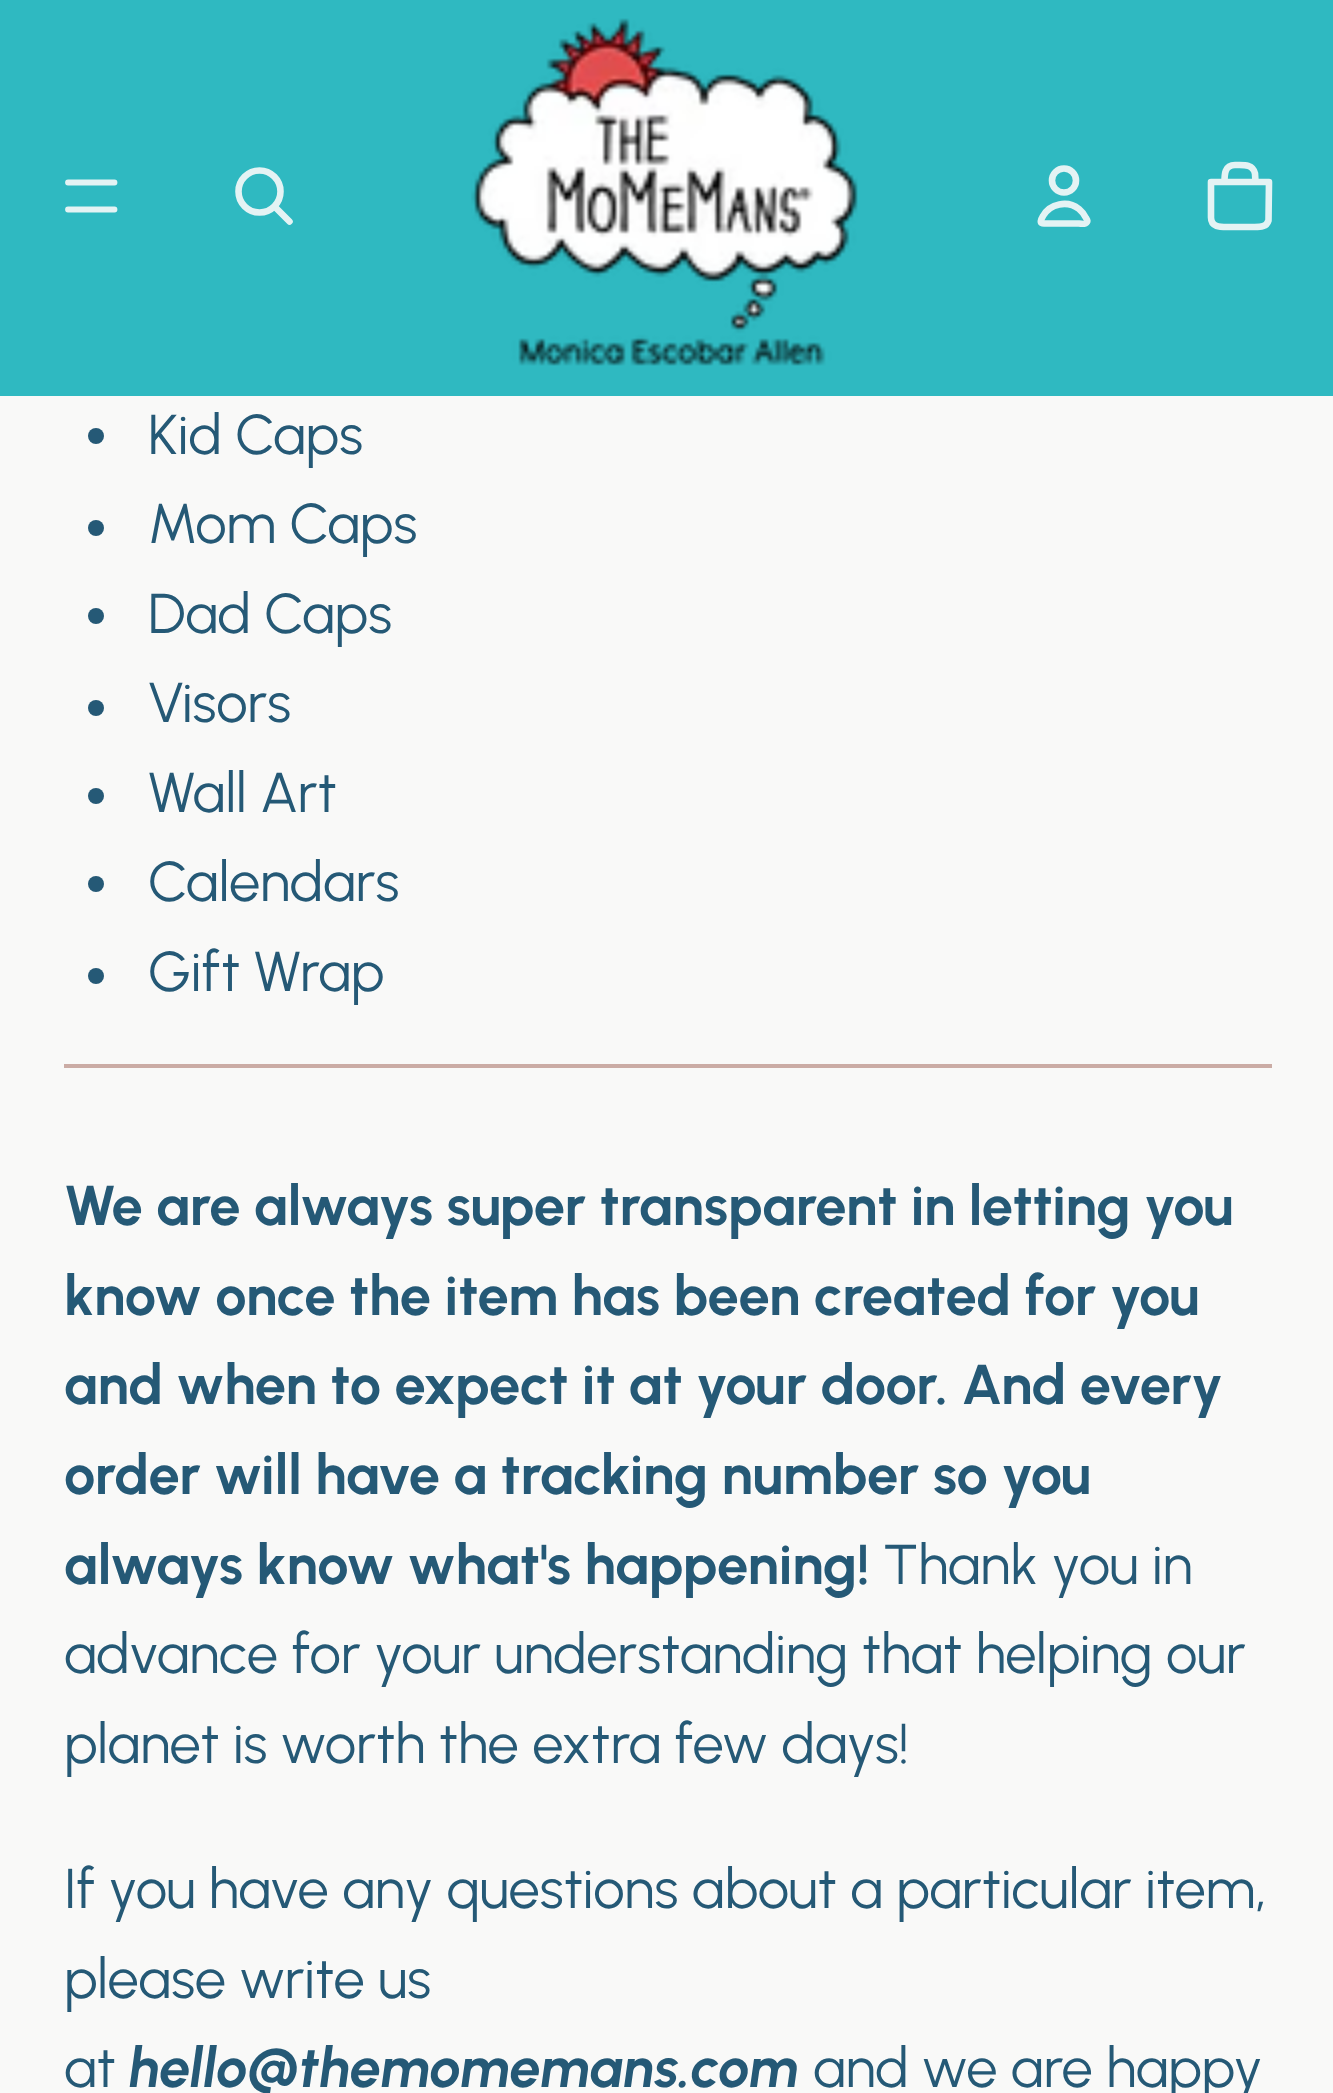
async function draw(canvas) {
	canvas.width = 1333;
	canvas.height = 2093;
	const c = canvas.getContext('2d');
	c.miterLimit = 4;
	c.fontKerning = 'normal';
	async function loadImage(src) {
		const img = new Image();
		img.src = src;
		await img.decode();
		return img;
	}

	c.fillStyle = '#f9f9f8';
	c.fillRect(0, 0, 1333, 2093);
	c.fillStyle = '#2fb9c1';
	c.fillRect(0, 0, 1333, 396);
	c.beginPath();
	c.moveTo(68, 182.5);
	c.lineTo(114.5, 182.5);
	c.moveTo(68, 209.5);
	c.lineTo(114.5, 209.5);
	c.strokeStyle = '#e4f3f4';
	c.lineWidth = 5.8;
	c.lineCap = 'round';
	c.stroke();
	c.beginPath();
	c.arc(259.5, 191.5, 21, 0, 2 * Math.PI);
	c.lineWidth = 6.6;
	c.stroke();
	c.beginPath();
	c.moveTo(275, 207);
	c.lineTo(289.5, 221.5);
	c.lineJoin = 'round';
	c.stroke();
	c.drawImage(await loadImage('img1.png'), 471, 18, 387, 348);
	c.beginPath();
	c.arc(1064, 180.5, 12, 0, 2 * Math.PI);
	c.stroke();
	c.beginPath();
	c.moveTo(1043, 216);
	c.bezierCurveTo(1038, 224.5, 1041.5, 223.5, 1050, 223.5);
	c.lineTo(1078, 223.5);
	c.bezierCurveTo(1079, 223.5, 1085.5, 225, 1087, 222);
	c.bezierCurveTo(1088, 220.5, 1087, 219.5, 1086, 218);
	c.bezierCurveTo(1084.5, 214.5, 1082, 211.5, 1079, 209);
	c.bezierCurveTo(1067.5, 200, 1050, 203.5, 1043, 216);
	c.stroke();
	c.beginPath();
	c.moveTo(1211, 182);
	c.lineTo(1269, 182);
	c.lineTo(1268.5, 220.5);
	c.bezierCurveTo(1266.5, 227.5, 1259.5, 227, 1253, 227);
	c.lineTo(1227, 227);
	c.bezierCurveTo(1220, 227, 1211, 227, 1211, 217.5);
	c.closePath();
	c.moveTo(1235, 165);
	c.bezierCurveTo(1242.5, 165, 1253, 163.5, 1255, 173.5);
	c.lineTo(1255.5, 182);
	c.lineTo(1224.5, 182);
	c.bezierCurveTo(1224.5, 174.5, 1224.5, 165, 1235, 165);
	c.stroke();
	c.fillStyle = '#cbaca5';
	c.fillRect(64, 1064, 1208, 4);
	c.fillStyle = '#255976';
	c.beginPath();
	c.arc(96, 436, 8, 0, 2 * Math.PI);
	c.fill();
	c.font = '56px Urbanist';
	c.fillText('Kid Caps', 148, 454);
	c.beginPath();
	c.arc(96, 528, 8, 0, 2 * Math.PI);
	c.fill();
	c.fillText('Mom Caps', 148, 543);
	c.beginPath();
	c.arc(96, 616, 8, 0, 2 * Math.PI);
	c.fill();
	c.fillText('Dad Caps', 148, 633);
	c.beginPath();
	c.arc(96, 708, 8, 0, 2 * Math.PI);
	c.fill();
	c.fillText('Visors', 148, 722);
	c.beginPath();
	c.arc(96, 796, 8, 0, 2 * Math.PI);
	c.fill();
	c.fillText('Wall Art', 148, 812);
	c.beginPath();
	c.arc(96, 884, 8, 0, 2 * Math.PI);
	c.fill();
	c.fillText('Calendars', 148, 901);
	c.beginPath();
	c.arc(96, 976, 8, 0, 2 * Math.PI);
	c.fill();
	c.fillText('Gift Wrap', 148, 991);
	c.font = 'bold 56px Urbanist';
	for (const [text, x, y] of [
		['We are always super transparent in letting you', 64, 1225],
		['know once the item has been created for you', 64, 1315],
		['and when to expect it at your door. And every', 64, 1404],
		['order will have a tracking number so you', 64, 1494],
		['always know what\'s happening!', 64, 1584],
	]) {
		c.fillText(text, x, y);
	}
	c.font = '56px Urbanist';
	for (const [text, x, y] of [
		['Thank you in', 883, 1584],
		['advance for your understanding that helping our', 64, 1673],
		['planet is worth the extra few days!', 64, 1763],
		['If you have any questions about a particular item,', 64, 1908],
		['please write us', 64, 1998],
		['at', 64, 2087],
	]) {
		c.fillText(text, x, y);
	}
	c.font = 'italic bold 56px Urbanist';
	c.fillText('hello@themomemans.com', 129, 2087);
	c.font = '56px Urbanist';
	c.fillText('and we are happy', 813, 2087);
}

draw(document.querySelector('canvas'));
